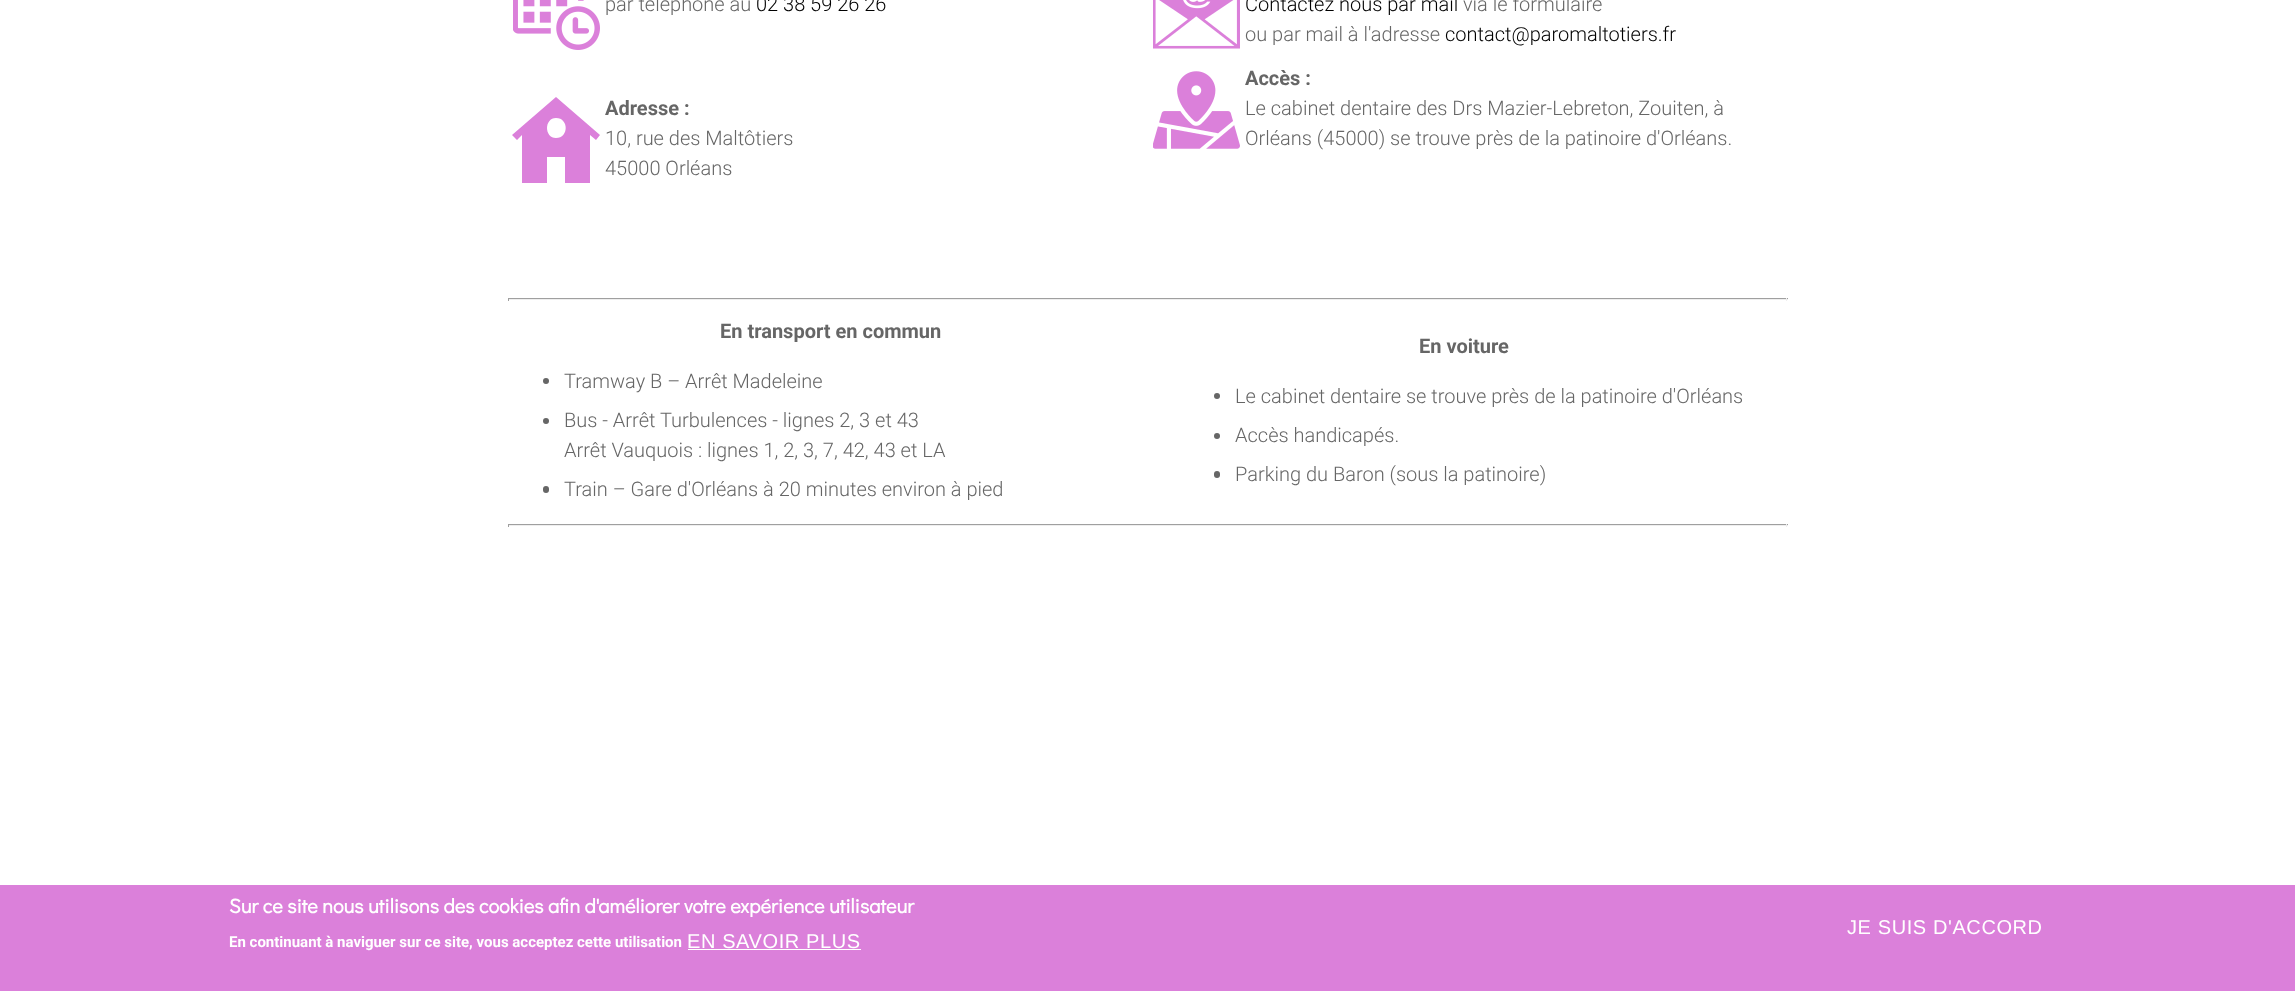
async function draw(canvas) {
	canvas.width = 2295;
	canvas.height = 991;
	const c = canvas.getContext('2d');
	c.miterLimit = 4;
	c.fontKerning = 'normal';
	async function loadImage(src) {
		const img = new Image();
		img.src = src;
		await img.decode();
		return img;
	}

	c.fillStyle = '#fff';
	c.fillRect(0, 0, 2295, 991);
	c.drawImage(await loadImage('img1.png'), 513, 0, 87, 50);
	c.font = '300 20px Roboto';
	c.fillStyle = '#666';
	c.fillText('par téléphone au', 605, 11);
	c.fillStyle = '#000';
	c.fillText('02 38 59 26 26', 756, 11);
	c.fillStyle = '#db80da';
	c.beginPath();
	c.moveTo(556, 97);
	c.lineTo(512, 135);
	c.lineTo(517, 140);
	c.lineTo(522, 135);
	c.lineTo(522, 183);
	c.lineTo(547, 183);
	c.lineTo(547, 157);
	c.lineTo(565, 157);
	c.lineTo(565, 183);
	c.lineTo(590, 183);
	c.lineTo(590, 135);
	c.lineTo(596, 140);
	c.lineTo(600, 135);
	c.closePath();
	c.moveTo(556, 138);
	c.bezierCurveTo(544, 138, 544, 118, 556, 118);
	c.bezierCurveTo(569, 118, 569, 138, 556, 138);
	c.closePath();
	c.fill();
	c.font = 'bold 20px Roboto';
	c.fillStyle = '#666';
	c.fillText('Adresse :', 605, 115);
	c.font = '300 20px Roboto';
	c.fillText('10, rue des Maltôtiers', 605, 145);
	c.fillText('45000 Orléans', 605, 175);
	c.drawImage(await loadImage('img2.png'), 1153, 0, 87, 49);
	c.fillStyle = '#000';
	c.fillText('Contactez nous par mail', 1245, 11);
	c.fillStyle = '#666';
	c.fillText('via le formulaire', 1463, 11);
	c.fillText('ou par mail à l\'adresse', 1245, 41);
	c.fillStyle = '#000';
	c.fillText('contact@paromaltotiers.fr', 1445, 41);
	c.drawImage(await loadImage('img3.png'), 1153, 71, 87, 78);
	c.font = 'bold 20px Roboto';
	c.fillStyle = '#666';
	c.fillText('Accès :', 1245, 85);
	c.font = '300 20px Roboto';
	c.fillText('Le cabinet dentaire des Drs Mazier-Lebreton, Zouiten, à', 1245, 115);
	c.fillText('Orléans (45000) se trouve près de la patinoire d\'Orléans.', 1245, 145);
	for (const [x, y, w, h, color] of [
		[508, 298, 1280, 1, '#9f9f9f'],
		[1786, 298, 1, 3, '#eee'],
		[508, 299, 1280, 1, '#eee'],
		[508, 298, 1, 3, '#9f9f9f'],
	]) {
		c.fillStyle = color;
		c.fillRect(x, y, w, h);
	}
	c.font = 'bold 20px Roboto';
	c.fillStyle = '#666';
	c.fillText('En transport en commun', 720, 338);
	c.beginPath();
	c.arc(546, 381, 3, 0, 2 * Math.PI);
	c.fill();
	c.font = '300 20px Roboto';
	c.fillText('Tramway B – Arrêt Madeleine', 564, 388);
	c.beginPath();
	c.arc(546, 421, 3, 0, 2 * Math.PI);
	c.fill();
	c.fillText('Bus - Arrêt Turbulences - lignes 2, 3 et 43', 564, 427);
	c.fillText('Arrêt Vauquois : lignes 1, 2, 3, 7, 42, 43 et LA', 564, 457);
	c.beginPath();
	c.roundRect(543, 486, 6, 7, 3);
	c.fill();
	c.fillText('Train – Gare d\'Orléans à 20 minutes environ à pied', 564, 496);
	c.font = 'bold 20px Roboto';
	c.fillText('En voiture', 1419, 353);
	c.beginPath();
	c.arc(1217, 396, 3, 0, 2 * Math.PI);
	c.fill();
	c.font = '300 20px Roboto';
	c.fillText('Le cabinet dentaire se trouve près de la patinoire d\'Orléans', 1235, 403);
	c.beginPath();
	c.arc(1217, 436, 3, 0, 2 * Math.PI);
	c.fill();
	c.fillText('Accès handicapés.', 1235, 442);
	c.beginPath();
	c.roundRect(1214, 471, 6, 7, 3);
	c.fill();
	c.fillText('Parking du Baron (sous la patinoire)', 1235, 481);
	for (const [x, y, w, h, color] of [
		[508, 524, 1280, 1, '#9f9f9f'],
		[1786, 524, 1, 3, '#eee'],
		[508, 525, 1280, 1, '#eee'],
		[508, 524, 1, 3, '#9f9f9f'],
		[0, 885, 2295, 106, '#db80da'],
	]) {
		c.fillStyle = color;
		c.fillRect(x, y, w, h);
	}
	c.font = 'bold 20px Didact Gothic';
	c.fillStyle = '#fff';
	c.fillText('Sur ce site nous utilisons des cookies afin d\'améliorer votre expérience utilisateur', 229, 913);
	c.font = 'bold 15px Roboto';
	c.fillText('En continuant à naviguer sur ce site, vous acceptez cette utilisation', 229, 947);
	c.letterSpacing = '0.6px';
	c.font = '20px Liberation Sans';
	c.fillText('EN SAVOIR PLUS', 687, 948);
	c.fillRect(688, 949, 173, 1);
	c.fillText('JE SUIS D\'ACCORD', 1847, 934);
}

draw(document.querySelector('canvas'));
